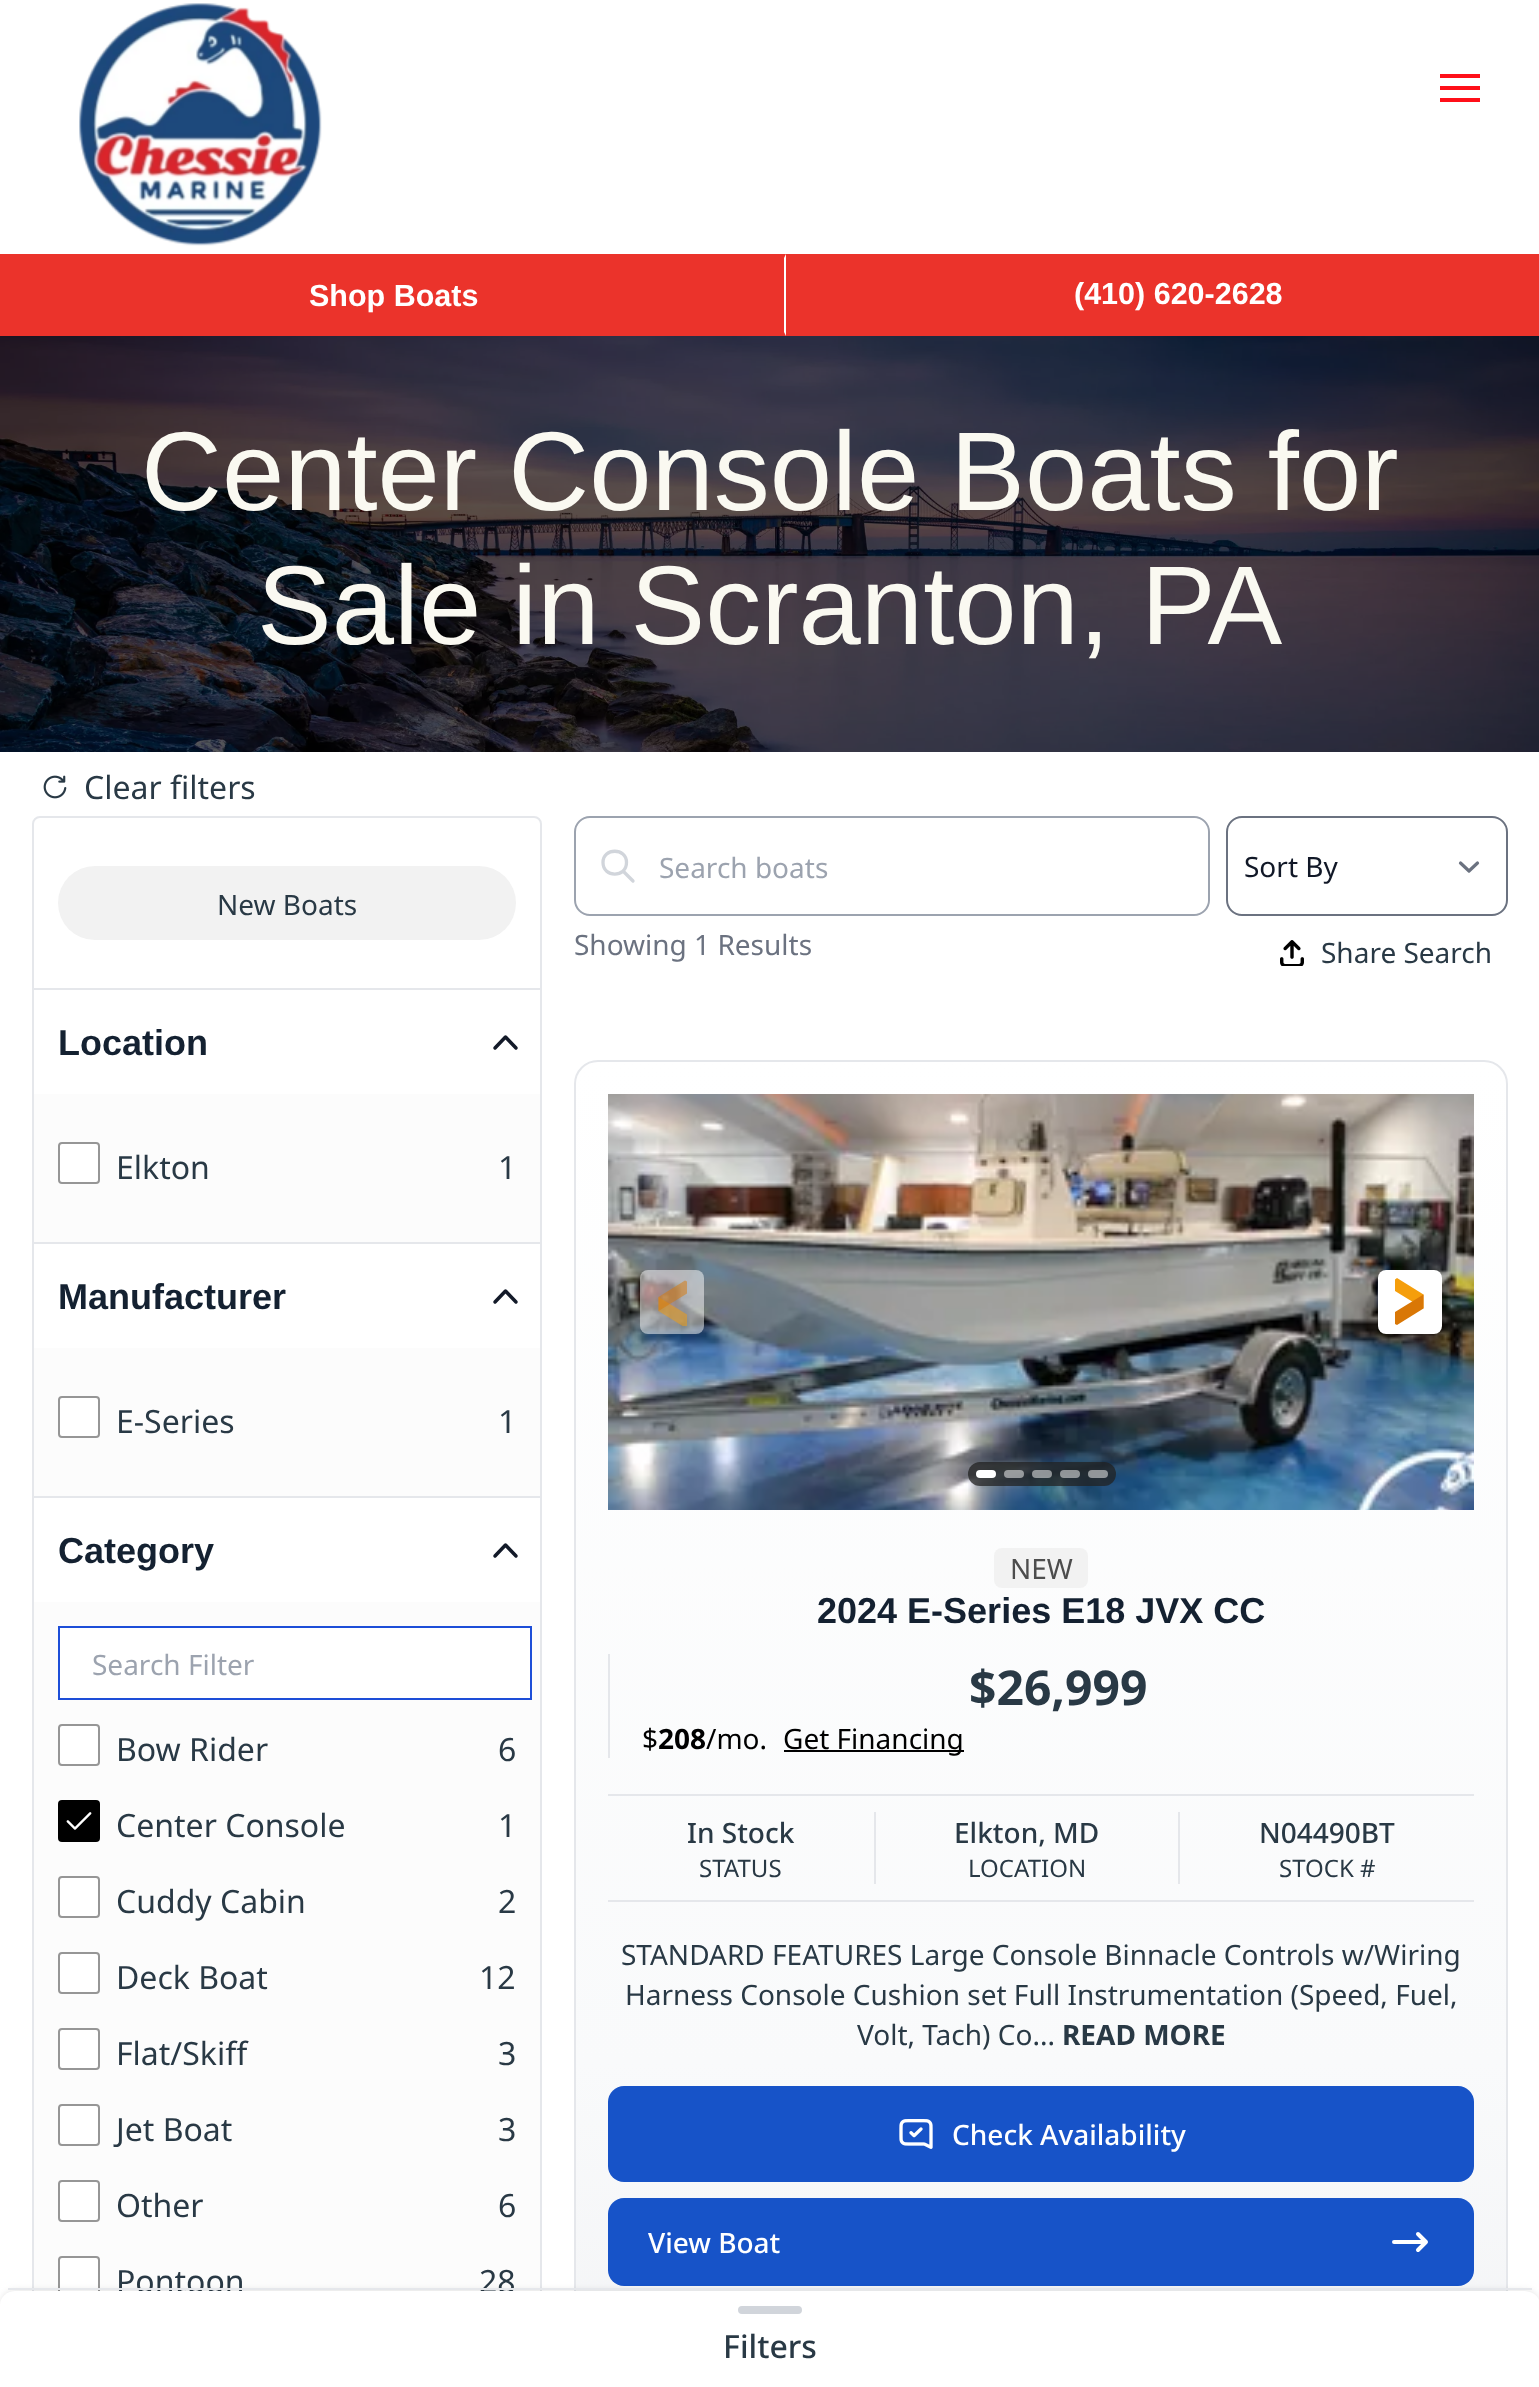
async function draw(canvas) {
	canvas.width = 1539;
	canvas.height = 2387;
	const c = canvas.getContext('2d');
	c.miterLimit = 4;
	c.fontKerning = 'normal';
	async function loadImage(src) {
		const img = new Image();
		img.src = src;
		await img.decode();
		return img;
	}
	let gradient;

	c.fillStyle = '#fff';
	c.fillRect(0, 0, 1539, 2387);
	c.drawImage(await loadImage('img1.png'), 79, 3, 243, 243);
	for (const [x, y, w, h, color] of [
		[1440, 74, 40, 4, '#ff0f19'],
		[1440, 86, 40, 4, '#ff0f19'],
		[1440, 98, 40, 4, '#ff0f19'],
		[0, 254, 1539, 82, '#eb332b'],
	]) {
		c.fillStyle = color;
		c.fillRect(x, y, w, h);
	}
	c.fillStyle = '#fff';
	c.beginPath();
	c.moveTo(786, 254);
	c.lineTo(786, 336);
	c.lineTo(784, 332);
	c.lineTo(784, 258);
	c.closePath();
	c.fill();
	c.font = 'bold 30.5px Liberation Sans';
	c.fillText('Shop Boats', 309, 306);
	c.fillText('(410) 620-2628', 1074, 304);
	c.drawImage(await loadImage('img2.png'), 0, 336, 1539, 416);
	c.font = '112px Liberation Sans';
	c.fillStyle = '#faf9f1';
	c.fillText('Center Console Boats for', 141, 510);
	c.fillText('Sale in Scranton, PA', 257, 644);
	c.beginPath();
	c.roundRect(33, 817, 508, 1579, 7);
	c.strokeStyle = '#e5e7eb';
	c.lineWidth = 2;
	c.stroke();
	c.drawImage(await loadImage('img3.png'), 43, 775, 24, 24);
	c.font = '32px Noto Sans';
	c.fillStyle = '#293945';
	c.fillText('Clear filters', 84, 799);
	c.fillStyle = '#f2f2f2';
	c.beginPath();
	c.roundRect(58, 866, 458, 74, 37);
	c.fill();
	c.font = '28px Noto Sans';
	c.fillStyle = '#293945';
	c.fillText('New Boats', 217, 915);
	c.fillStyle = '#e5e7eb';
	c.fillRect(34, 988, 506, 2);
	c.font = 'bold 36px Liberation Sans';
	c.fillStyle = '#142131';
	c.fillText('Location', 58, 1055);
	c.beginPath();
	c.moveTo(516, 1048);
	c.lineTo(505.5, 1037);
	c.lineTo(495, 1048);
	c.strokeStyle = '#131a29';
	c.lineWidth = 3.5;
	c.lineCap = 'round';
	c.lineJoin = 'round';
	c.stroke();
	c.fillStyle = '#fcfcfc';
	c.fillRect(34, 1094, 506, 148);
	c.fillStyle = '#fff';
	c.beginPath();
	c.roundRect(59, 1143, 40, 40, 3);
	c.fill();
	c.strokeStyle = '#969696';
	c.lineWidth = 2;
	c.lineJoin = 'miter';
	c.stroke();
	c.font = '32px Noto Sans';
	c.fillStyle = '#293945';
	c.fillText('Elkton', 116, 1179);
	c.fillText('1', 498, 1179);
	c.fillStyle = '#e5e7eb';
	c.fillRect(34, 1242, 506, 2);
	c.font = 'bold 36px Liberation Sans';
	c.fillStyle = '#142131';
	c.fillText('Manufacturer', 58, 1309);
	c.beginPath();
	c.moveTo(516, 1302);
	c.lineTo(505.5, 1291);
	c.lineTo(495, 1302);
	c.strokeStyle = '#131a29';
	c.lineWidth = 3.5;
	c.lineJoin = 'round';
	c.stroke();
	c.fillStyle = '#fcfcfc';
	c.fillRect(34, 1348, 506, 148);
	c.fillStyle = '#fff';
	c.beginPath();
	c.roundRect(59, 1397, 40, 40, 3);
	c.fill();
	c.strokeStyle = '#969696';
	c.lineWidth = 2;
	c.lineJoin = 'miter';
	c.stroke();
	c.font = '32px Noto Sans';
	c.fillStyle = '#293945';
	c.fillText('E-Series', 116, 1433);
	c.fillText('1', 498, 1433);
	c.fillStyle = '#e5e7eb';
	c.fillRect(34, 1496, 506, 2);
	c.font = 'bold 36px Liberation Sans';
	c.fillStyle = '#142131';
	c.fillText('Category', 58, 1563);
	c.beginPath();
	c.moveTo(516, 1556);
	c.lineTo(505.5, 1545);
	c.lineTo(495, 1556);
	c.strokeStyle = '#131a29';
	c.lineWidth = 3.5;
	c.lineJoin = 'round';
	c.stroke();
	c.fillStyle = '#fcfcfc';
	c.fillRect(34, 1602, 506, 689);
	c.fillStyle = '#fff';
	c.beginPath();
	c.rect(59, 1627, 472, 72);
	c.fill();
	c.strokeStyle = '#1d4ed8';
	c.lineWidth = 2;
	c.lineJoin = 'miter';
	c.stroke();
	c.font = '28px Noto Sans';
	c.fillStyle = '#9ca3af';
	c.fillText('Search Filter', 92, 1675);
	c.fillStyle = '#fff';
	c.beginPath();
	c.roundRect(59, 1725, 40, 40, 3);
	c.fill();
	c.strokeStyle = '#969696';
	c.stroke();
	c.font = '32px Noto Sans';
	c.fillStyle = '#293945';
	c.fillText('Bow Rider', 116, 1761);
	c.fillText('6', 498, 1761);
	c.fillStyle = '#000';
	c.beginPath();
	c.roundRect(58, 1800, 42, 42, 4);
	c.fill();
	c.drawImage(await loadImage('img4.png'), 66, 1812, 26, 18);
	c.fillStyle = '#293945';
	c.fillText('Center Console', 116, 1837);
	c.fillText('1', 498, 1837);
	c.fillStyle = '#fff';
	c.beginPath();
	c.roundRect(59, 1877, 40, 40, 3);
	c.fill();
	c.stroke();
	c.fillStyle = '#293945';
	c.fillText('Cuddy Cabin', 116, 1913);
	c.fillText('2', 498, 1913);
	c.fillStyle = '#fff';
	c.beginPath();
	c.roundRect(59, 1953, 40, 40, 3);
	c.fill();
	c.stroke();
	c.fillStyle = '#293945';
	c.fillText('Deck Boat', 116, 1989);
	c.fillText('12', 479, 1989);
	c.fillStyle = '#fff';
	c.beginPath();
	c.roundRect(59, 2029, 40, 40, 3);
	c.fill();
	c.stroke();
	c.fillStyle = '#293945';
	c.fillText('Flat/Skiff', 116, 2065);
	c.fillText('3', 498, 2065);
	c.fillStyle = '#fff';
	c.beginPath();
	c.roundRect(59, 2105, 40, 40, 3);
	c.fill();
	c.stroke();
	c.fillStyle = '#293945';
	c.fillText('Jet Boat', 116, 2141);
	c.fillText('3', 498, 2141);
	c.fillStyle = '#fff';
	c.beginPath();
	c.roundRect(59, 2181, 40, 40, 3);
	c.fill();
	c.stroke();
	c.fillStyle = '#293945';
	c.fillText('Other', 116, 2217);
	c.fillText('6', 498, 2217);
	c.fillStyle = '#fff';
	c.beginPath();
	c.roundRect(59, 2257, 40, 40, 3);
	c.fill();
	c.stroke();
	c.fillStyle = '#293945';
	c.fillText('Pontoon', 116, 2293);
	c.fillText('28', 479, 2293);
	c.beginPath();
	c.roundRect(575, 817, 634, 98, 15);
	c.strokeStyle = '#9ca3af';
	c.stroke();
	c.beginPath();
	c.moveTo(633, 881);
	c.lineTo(623, 871);
	c.moveTo(626.5, 862.5);
	c.bezierCurveTo(626.5, 878, 603, 878, 603, 862.5);
	c.bezierCurveTo(603, 847.5, 626.5, 847.5, 626.5, 862.5);
	c.closePath();
	c.strokeStyle = '#d1d5db';
	c.lineWidth = 3.3;
	c.lineJoin = 'round';
	c.stroke();
	c.save();
	c.beginPath();
	c.roundRect(576, 818, 632, 96, 14);
	c.clip();
	c.fillStyle = '#fff';
	c.beginPath();
	c.roundRect(660, 818, 548, 96, [0, 16, 16, 0]);
	c.fill();
	c.restore();
	c.font = '28px Noto Sans';
	c.fillStyle = '#9ca3af';
	c.fillText('Search boats', 659, 878);
	c.beginPath();
	c.moveTo(1460.5, 863);
	c.lineTo(1469, 871);
	c.lineTo(1477.5, 863);
	c.strokeStyle = '#6b7280';
	c.lineWidth = 3.2;
	c.stroke();
	c.beginPath();
	c.roundRect(1227, 817, 280, 98, 15);
	c.lineWidth = 2;
	c.lineJoin = 'miter';
	c.stroke();
	c.fillStyle = '#111827';
	c.fillText('Sort By', 1244, 877);
	c.fillStyle = '#6b7280';
	c.fillText('Showing 1 Results', 574, 955);
	c.drawImage(await loadImage('img5.png'), 1280, 940, 24, 26);
	c.fillStyle = '#293945';
	c.fillText('Share Search', 1321, 963);
	c.save();
	c.beginPath();
	c.roundRect(574, 1060, 934, 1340, 24);
	c.clip();
	gradient = c.createLinearGradient(1041, 1062, 1041, 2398);
	gradient.addColorStop(0, '#fff');
	gradient.addColorStop(0.75, '#f9fafb');
	gradient.addColorStop(1, '#f3f4f6');
	c.fillStyle = gradient;
	c.fillRect(574, 1062, 934, 1229);
	c.restore();
	c.beginPath();
	c.roundRect(575, 1061, 932, 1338, 23);
	c.strokeStyle = '#e5e7eb';
	c.stroke();
	c.drawImage(await loadImage('img6.png'), 608, 1094, 866, 416);
	c.fillStyle = '#ffffff80';
	c.beginPath();
	c.roundRect(640, 1270, 64, 64, 8);
	c.fill();
	c.save();
	c.beginPath();
	c.rect(648, 1278, 48, 48);
	c.clip();
	c.fillStyle = '#f59e0b80';
	c.beginPath();
	c.moveTo(685, 1327.5);
	c.lineTo(658.5, 1311);
	c.lineTo(658.5, 1297);
	c.lineTo(687, 1314.5);
	c.lineTo(687, 1326);
	c.closePath();
	c.fill();
	c.restore();
	c.fillStyle = '#d9770680';
	c.beginPath();
	c.moveTo(685, 1280.5);
	c.lineTo(658.5, 1297);
	c.lineTo(658.5, 1311);
	c.lineTo(687, 1293.5);
	c.lineTo(687, 1281.5);
	c.closePath();
	c.fill();
	c.fillStyle = '#0000001a';
	c.filter = 'blur(2px)';
	c.beginPath();
	c.roundRect(1380, 1274, 60, 60, 6);
	c.fill();
	c.filter = 'none';
	c.filter = 'blur(3px)';
	c.beginPath();
	c.roundRect(1378, 1272, 64, 64, 8);
	c.fill();
	c.filter = 'none';
	c.fillStyle = '#fff';
	c.beginPath();
	c.roundRect(1378, 1270, 64, 64, 8);
	c.fill();
	c.fillStyle = '#f59e0b';
	c.beginPath();
	c.moveTo(1397, 1278);
	c.lineTo(1423.5, 1294.5);
	c.lineTo(1423.5, 1308.5);
	c.lineTo(1395, 1291);
	c.lineTo(1395, 1279.5);
	c.closePath();
	c.fill();
	c.fillStyle = '#d97706';
	c.beginPath();
	c.moveTo(1397, 1325);
	c.lineTo(1423.5, 1308.5);
	c.lineTo(1423.5, 1294.5);
	c.lineTo(1395, 1312);
	c.lineTo(1395, 1324);
	c.closePath();
	c.fill();
	c.fillStyle = '#222222bf';
	c.beginPath();
	c.roundRect(968, 1462, 148, 24, 12);
	c.fill();
	c.fillStyle = '#fff';
	c.beginPath();
	c.roundRect(976, 1470, 20, 8, 4);
	c.fill();
	c.fillStyle = '#ffffff80';
	c.beginPath();
	c.roundRect(1004, 1470, 20, 8, 4);
	c.fill();
	c.beginPath();
	c.roundRect(1032, 1470, 20, 8, 4);
	c.fill();
	c.beginPath();
	c.roundRect(1060, 1470, 20, 8, 4);
	c.fill();
	c.beginPath();
	c.roundRect(1088, 1470, 20, 8, 4);
	c.fill();
	c.fillStyle = '#f2f2f2';
	c.beginPath();
	c.roundRect(994, 1548, 94, 40, 8);
	c.fill();
	c.fillStyle = '#4d4d4d';
	c.fillText('NEW', 1010, 1579);
	c.font = 'bold 36px Liberation Sans';
	c.fillStyle = '#142131';
	c.fillText('2024 E-Series E18 JVX CC', 817, 1623);
	c.fillStyle = '#e5e7eb';
	c.fillRect(608, 1654, 2, 104);
	c.font = 'bold 48px Noto Sans';
	c.fillStyle = '#293945';
	c.fillText('$26,999', 969, 1705);
	c.font = '28px Noto Sans';
	c.fillStyle = '#000';
	c.fillText('$', 642, 1749);
	c.font = 'bold 28px Noto Sans';
	c.fillText('208', 658, 1749);
	c.font = '28px Noto Sans';
	c.fillText('/mo.', 706, 1749);
	c.fillRect(784, 1750, 180, 2);
	c.fillText('Get Financing', 783, 1749);
	c.fillStyle = '#e5e7eb';
	c.fillRect(608, 1794, 866, 2);
	c.font = '500 28px Noto Sans';
	c.fillStyle = '#293945';
	c.fillText('In Stock', 687, 1843);
	c.font = '24px Noto Sans';
	c.fillText('STATUS', 699, 1877);
	c.fillStyle = '#e5e7eb';
	c.fillRect(874, 1812, 2, 72);
	c.font = '500 28px Noto Sans';
	c.fillStyle = '#293945';
	c.fillText('Elkton, MD', 954, 1843);
	c.font = '24px Noto Sans';
	c.fillText('LOCATION', 968, 1877);
	c.fillStyle = '#e5e7eb';
	c.fillRect(1178, 1812, 2, 72);
	c.font = '500 28px Noto Sans';
	c.fillStyle = '#293945';
	c.fillText('N04490BT', 1259, 1843);
	c.font = '24px Noto Sans';
	c.fillText('STOCK #', 1279, 1877);
	c.fillStyle = '#e5e7eb';
	c.fillRect(608, 1900, 866, 2);
	c.font = '28px Noto Sans';
	c.fillStyle = '#293945';
	for (const [text, x, y] of [
		['STANDARD FEATURES Large Console Binnacle Controls w/Wiring', 621, 1965],
		['Harness Console Cushion set Full Instrumentation (Speed, Fuel,', 625, 2005],
		['Volt, Tach) Co...', 857, 2045],
	]) {
		c.fillText(text, x, y);
	}
	c.font = 'bold 28px Noto Sans';
	c.fillText('READ MORE', 1062, 2045);
	c.fillStyle = '#1753c8';
	c.beginPath();
	c.roundRect(608, 2086, 866, 96, 16);
	c.fill();
	c.drawImage(await loadImage('img7.png'), 899, 2119, 34, 30);
	c.font = '500 28px Noto Sans';
	c.fillStyle = '#fff';
	c.fillText('Check Availability', 952, 2145);
	c.fillStyle = '#1753c8';
	c.beginPath();
	c.roundRect(608, 2198, 866, 88, 16);
	c.fill();
	c.fillStyle = '#fff';
	c.fillText('View Boat', 648, 2253);
	c.beginPath();
	c.moveTo(1394, 2242);
	c.lineTo(1426, 2242);
	c.moveTo(1426, 2242);
	c.lineTo(1418, 2234);
	c.moveTo(1426, 2242);
	c.lineTo(1418, 2250);
	c.strokeStyle = '#fff';
	c.lineWidth = 4;
	c.lineJoin = 'round';
	c.stroke();
	c.fillStyle = '#0000001a';
	c.filter = 'blur(3px)';
	c.beginPath();
	c.roundRect(0, 2290, 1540, 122, 16);
	c.fill();
	c.filter = 'none';
	c.fillStyle = '#fff';
	c.beginPath();
	c.moveTo(16, 2291);
	c.lineTo(1524, 2291);
	c.bezierCurveTo(1533, 2291, 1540, 2297, 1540, 2305);
	c.lineTo(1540, 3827);
	c.lineTo(0, 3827);
	c.lineTo(0, 2305);
	c.bezierCurveTo(0, 2297, 7, 2291, 16, 2291);
	c.closePath();
	c.fill();
	c.fillStyle = '#e5e7eb';
	c.fillRect(8, 2288, 1524, 2);
	c.fillStyle = '#d1d5db';
	c.beginPath();
	c.roundRect(738, 2306, 64, 8, 4);
	c.fill();
	c.font = '500 32px Noto Sans';
	c.fillStyle = '#293945';
	c.fillText('Filters', 723, 2358);
}

draw(document.querySelector('canvas'));
